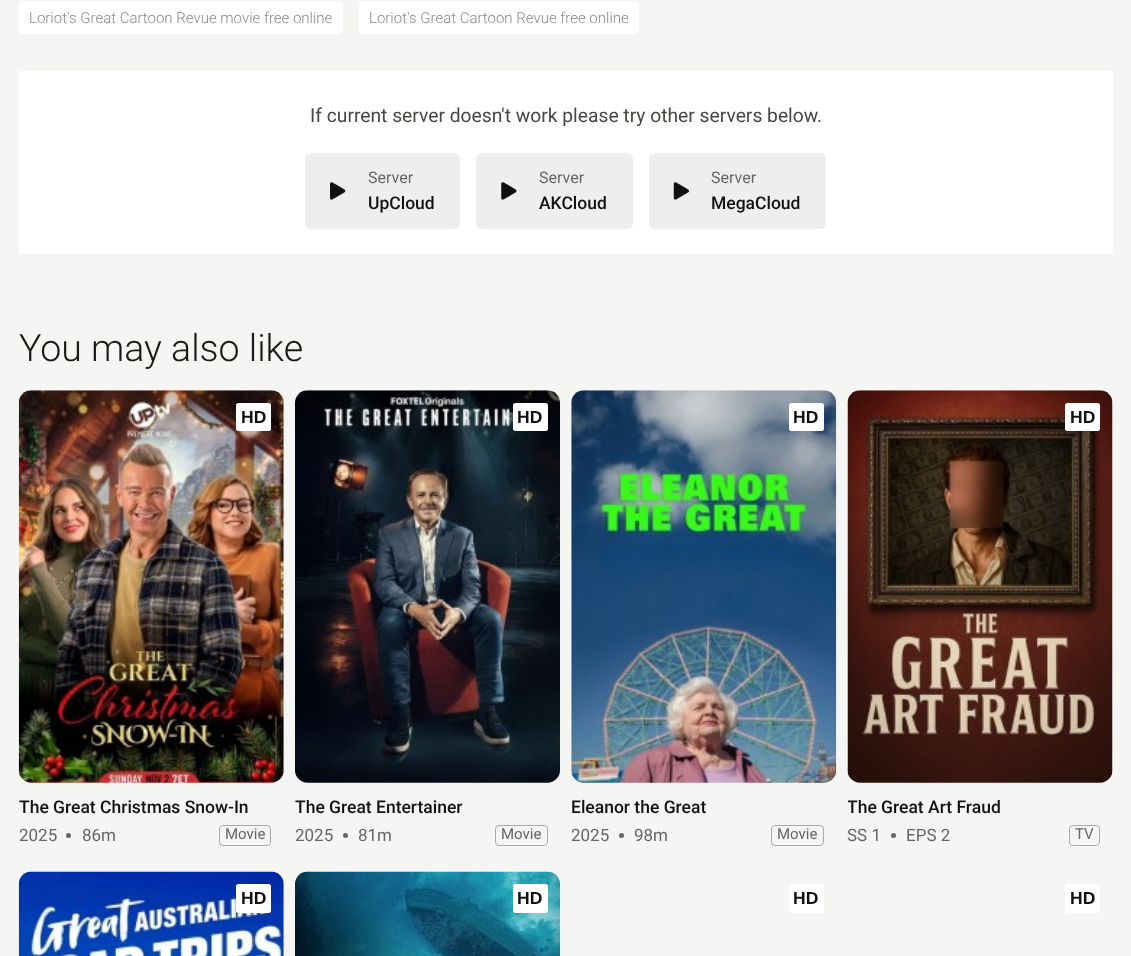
async function draw(canvas) {
	canvas.width = 1131;
	canvas.height = 956;
	const c = canvas.getContext('2d');
	c.miterLimit = 4;
	c.fontKerning = 'normal';
	async function loadImage(src) {
		const img = new Image();
		img.src = src;
		await img.decode();
		return img;
	}

	c.fillStyle = '#f5f5f3';
	c.fillRect(0, 0, 1131, 956);
	c.fillStyle = '#fff';
	c.beginPath();
	c.roundRect(19, 1, 324, 33, 4);
	c.fill();
	c.font = '300 15px Roboto';
	c.fillStyle = '#888';
	c.fillText('Loriot\'s Great Cartoon Revue movie free online', 29, 23);
	c.fillStyle = '#fff';
	c.beginPath();
	c.roundRect(359, 1, 280, 33, 4);
	c.fill();
	c.fillStyle = '#888';
	c.fillText('Loriot\'s Great Cartoon Revue free online', 369, 23);
	c.fillStyle = '#fff';
	c.fillRect(19, 71, 1094, 183);
	c.font = '19.25px Roboto';
	c.fillStyle = '#484743';
	c.fillText('If current server doesn\'t work please try other servers below.', 310, 122);
	c.fillStyle = '#eee';
	c.beginPath();
	c.roundRect(305, 153, 155, 76, 6);
	c.fill();
	c.drawImage(await loadImage('img1.png'), 330, 182, 16, 18);
	c.font = '16px Roboto';
	c.fillStyle = '#666';
	c.fillText('Server', 368, 183);
	c.font = '500 17.5px Roboto';
	c.fillStyle = '#111';
	c.fillText('UpCloud', 368, 209);
	c.fillStyle = '#eee';
	c.beginPath();
	c.roundRect(476, 153, 157, 76, 6);
	c.fill();
	c.drawImage(await loadImage('img2.png'), 501, 182, 16, 18);
	c.font = '16px Roboto';
	c.fillStyle = '#666';
	c.fillText('Server', 539, 183);
	c.font = '500 17.5px Roboto';
	c.fillStyle = '#111';
	c.fillText('AKCloud', 539, 209);
	c.fillStyle = '#eee';
	c.beginPath();
	c.roundRect(649, 153, 177, 76, 6);
	c.fill();
	c.drawImage(await loadImage('img3.png'), 673, 182, 16, 18);
	c.font = '16px Roboto';
	c.fillStyle = '#666';
	c.fillText('Server', 711, 183);
	c.font = '500 17.5px Roboto';
	c.fillStyle = '#111';
	c.fillText('MegaCloud', 711, 209);
	c.font = '300 37.5px Roboto';
	c.fillStyle = '#1a1914';
	c.fillText('You may also like', 19, 361);
	c.drawImage(await loadImage('img4.png'), 18, 390, 266, 393);
	c.fillStyle = '#fff';
	c.beginPath();
	c.roundRect(236, 403, 35, 28, 2.5);
	c.fill();
	c.font = 'bold 17.5px Liberation Sans';
	c.fillStyle = '#111';
	c.fillText('HD', 241, 423);
	c.font = '500 17.5px Roboto';
	c.fillText('The Great Christmas Snow-In', 19, 813);
	c.font = '17px Roboto';
	c.fillStyle = '#666';
	c.fillText('2025', 19, 841);
	c.beginPath();
	c.arc(68.5, 835.5, 2.5, 0, 2 * Math.PI);
	c.fill();
	c.fillText('86m', 82, 841);
	c.beginPath();
	c.roundRect(219.5, 825.5, 51, 20, 3.5);
	c.strokeStyle = '#aaa';
	c.stroke();
	c.font = '15px Roboto';
	c.fillText('Movie', 225, 839);
	c.drawImage(await loadImage('img5.png'), 295, 390, 265, 393);
	c.fillStyle = '#fff';
	c.beginPath();
	c.roundRect(513, 403, 35, 28, 2.5);
	c.fill();
	c.font = 'bold 17.5px Liberation Sans';
	c.fillStyle = '#111';
	c.fillText('HD', 517, 423);
	c.font = '500 17.5px Roboto';
	c.fillText('The Great Entertainer', 295, 813);
	c.font = '17px Roboto';
	c.fillStyle = '#666';
	c.fillText('2025', 295, 841);
	c.beginPath();
	c.arc(345.5, 835.5, 2.5, 0, 2 * Math.PI);
	c.fill();
	c.fillText('81m', 358, 841);
	c.beginPath();
	c.roundRect(495.5, 825.5, 52, 20, 3.5);
	c.stroke();
	c.font = '15px Roboto';
	c.fillText('Movie', 501, 839);
	c.drawImage(await loadImage('img6.png'), 571, 390, 266, 393);
	c.fillStyle = '#fff';
	c.beginPath();
	c.roundRect(789, 403, 35, 28, 2.5);
	c.fill();
	c.font = 'bold 17.5px Liberation Sans';
	c.fillStyle = '#111';
	c.fillText('HD', 793, 423);
	c.font = '500 17.5px Roboto';
	c.fillText('Eleanor the Great', 571, 813);
	c.font = '17px Roboto';
	c.fillStyle = '#666';
	c.fillText('2025', 571, 841);
	c.beginPath();
	c.arc(621.5, 835.5, 2.5, 0, 2 * Math.PI);
	c.fill();
	c.fillText('98m', 634, 841);
	c.beginPath();
	c.roundRect(771.5, 825.5, 52, 20, 3.5);
	c.stroke();
	c.font = '15px Roboto';
	c.fillText('Movie', 777, 839);
	c.drawImage(await loadImage('img7.png'), 847, 390, 266, 393);
	c.fillStyle = '#fff';
	c.beginPath();
	c.roundRect(1065, 403, 35, 28, 2.5);
	c.fill();
	c.font = 'bold 17.5px Liberation Sans';
	c.fillStyle = '#111';
	c.fillText('HD', 1070, 423);
	c.save();
	c.beginPath();
	c.rect(848, 795, 252, 24);
	c.clip();
	c.font = '500 17.5px Roboto';
	c.fillText('The Great Art Fraud', 847, 813);
	c.restore();
	c.font = '17px Roboto';
	c.fillStyle = '#666';
	c.fillText('SS 1', 847, 841);
	c.beginPath();
	c.arc(893.5, 835.5, 2.5, 0, 2 * Math.PI);
	c.fill();
	c.fillText('EPS 2', 906, 841);
	c.beginPath();
	c.roundRect(1069.5, 825.5, 30, 20, 3.5);
	c.stroke();
	c.font = '15px Roboto';
	c.fillText('TV', 1075, 839);
	c.drawImage(await loadImage('img8.png'), 18, 871, 266, 85);
	c.fillStyle = '#fff';
	c.beginPath();
	c.roundRect(236, 884, 35, 29, 2.5);
	c.fill();
	c.font = 'bold 17.5px Liberation Sans';
	c.fillStyle = '#111';
	c.fillText('HD', 241, 904);
	c.drawImage(await loadImage('img9.png'), 295, 871, 265, 85);
	c.fillStyle = '#fff';
	c.beginPath();
	c.roundRect(513, 884, 35, 29, 2.5);
	c.fill();
	c.fillStyle = '#111';
	c.fillText('HD', 517, 904);
	c.fillStyle = '#fff';
	c.beginPath();
	c.roundRect(789, 884, 35, 29, 2.5);
	c.fill();
	c.fillStyle = '#111';
	c.fillText('HD', 793, 904);
	c.fillStyle = '#fff';
	c.beginPath();
	c.roundRect(1065, 884, 35, 29, 2.5);
	c.fill();
	c.fillStyle = '#111';
	c.fillText('HD', 1070, 904);
}

draw(document.querySelector('canvas'));
